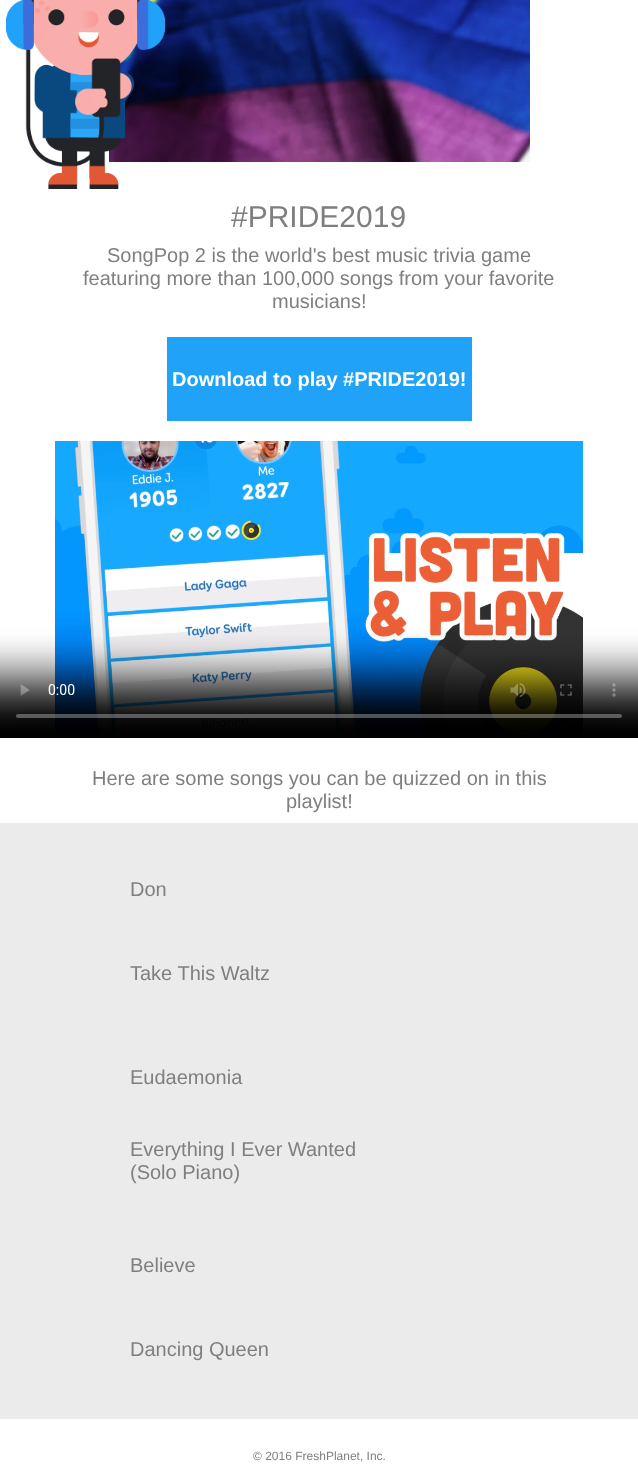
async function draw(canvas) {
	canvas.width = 638;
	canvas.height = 1477;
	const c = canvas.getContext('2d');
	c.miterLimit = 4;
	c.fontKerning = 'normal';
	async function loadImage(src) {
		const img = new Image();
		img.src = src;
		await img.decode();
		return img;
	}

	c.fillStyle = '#fff';
	c.fillRect(0, 0, 638, 1477);
	c.drawImage(await loadImage('img2.png'), 109, 0, 421, 162);
	c.drawImage(await loadImage('img1.png'), 6, 0, 159, 189);
	c.font = '30px Liberation Sans';
	c.fillStyle = '#7f7f7f';
	c.fillText('#PRIDE2019', 231, 227);
	c.font = '20px Liberation Sans';
	for (const [text, x, y] of [
		['SongPop 2 is the world\'s best music trivia game', 107, 262],
		['featuring more than 100,000 songs from your favorite', 83, 285],
		['musicians!', 272, 308],
	]) {
		c.fillText(text, x, y);
	}
	c.fillStyle = '#1fa2f8';
	c.fillRect(167, 337, 305, 84);
	c.font = 'bold 20px Liberation Sans';
	c.fillStyle = '#fff';
	c.fillText('Download to play #PRIDE2019!', 172, 386);
	c.drawImage(await loadImage('img3.png'), 0, 441, 638, 297);
	c.font = '20px Liberation Sans';
	c.fillStyle = '#7f7f7f';
	c.fillText('Here are some songs you can be quizzed on in this', 92, 785);
	c.fillText('playlist!', 286, 808);
	c.fillStyle = '#ebebeb';
	c.fillRect(0, 823, 638, 596);
	c.fillStyle = '#7f7f7f';
	for (const [text, x, y] of [
		['Don', 130, 896],
		['Take This Waltz', 130, 980],
		['Eudaemonia', 130, 1084],
		['Everything I Ever Wanted', 130, 1156],
		['(Solo Piano)', 130, 1179],
		['Believe', 130, 1272],
		['Dancing Queen', 130, 1356],
	]) {
		c.fillText(text, x, y);
	}
	c.font = '12px Liberation Sans';
	c.fillText('© 2016 FreshPlanet, Inc.', 253, 1460);
}

draw(document.querySelector('canvas'));
